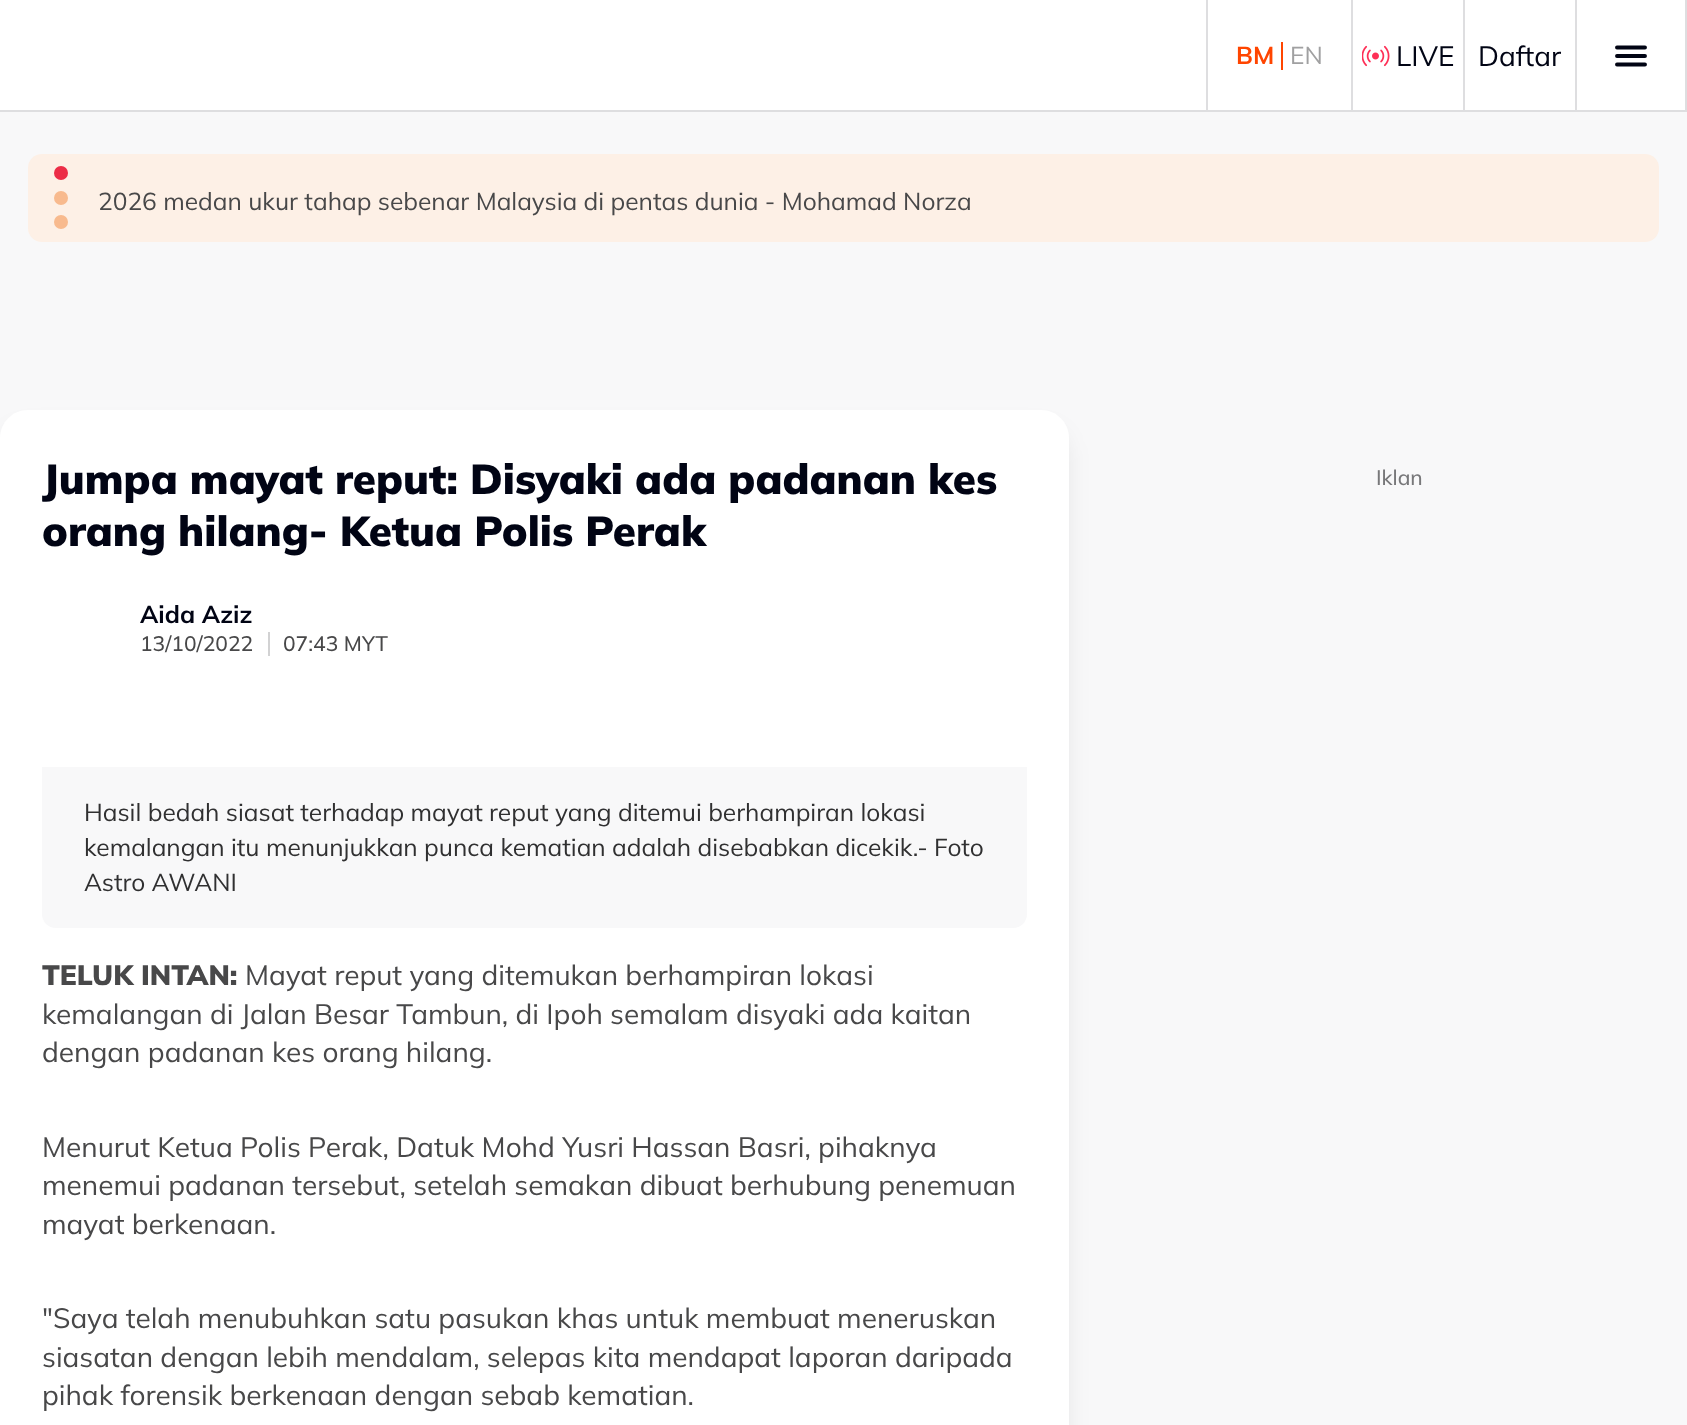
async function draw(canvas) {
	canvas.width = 1687;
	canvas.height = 1425;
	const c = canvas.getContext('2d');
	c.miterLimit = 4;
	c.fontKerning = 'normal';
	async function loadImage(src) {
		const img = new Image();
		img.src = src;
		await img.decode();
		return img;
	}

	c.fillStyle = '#fff';
	c.fillRect(0, 0, 1687, 1425);
	c.fillStyle = '#dedee0';
	c.fillRect(0, 110, 1687, 2);
	c.fillRect(1206, 0, 2, 110);
	c.font = 'bold 24.5px Mulish';
	c.fillStyle = '#ff4500';
	c.fillText('BM', 1236, 64);
	c.fillRect(1281, 42, 2, 28);
	c.font = '24.5px Mulish';
	c.fillStyle = '#a0a0a1';
	c.fillText('EN', 1290, 64);
	c.fillStyle = '#dedee0';
	c.fillRect(1351, 0, 2, 110);
	c.drawImage(await loadImage('img1.png'), 1362, 45, 28, 22);
	c.font = '28px Mulish';
	c.fillStyle = '#010414';
	c.fillText('LIVE', 1396, 66);
	c.fillStyle = '#dedee0';
	c.fillRect(1463, 0, 2, 110);
	c.fillStyle = '#010414';
	c.fillText('Daftar', 1478, 66);
	c.fillStyle = '#dedee0';
	c.fillRect(1685, 0, 2, 110);
	c.fillRect(1575, 0, 2, 110);
	c.beginPath();
	c.moveTo(1617, 47.5);
	c.lineTo(1645, 47.5);
	c.moveTo(1617, 56);
	c.lineTo(1645, 56);
	c.moveTo(1617, 64.5);
	c.lineTo(1645, 64.5);
	c.strokeStyle = '#010414';
	c.lineWidth = 3.9;
	c.lineCap = 'round';
	c.stroke();
	c.fillStyle = '#f8f8f9';
	c.fillRect(0, 112, 1687, 1313);
	c.fillStyle = '#fdf0e6';
	c.beginPath();
	c.roundRect(28, 154, 1631, 88, 14);
	c.fill();
	c.fillStyle = '#ec2d47';
	c.beginPath();
	c.arc(61, 173, 7, 0, 2 * Math.PI);
	c.fill();
	c.fillStyle = '#f8ba8e';
	c.beginPath();
	c.arc(61, 198, 7, 0, 2 * Math.PI);
	c.fill();
	c.beginPath();
	c.arc(61, 222, 7, 0, 2 * Math.PI);
	c.fill();
	c.font = '24.5px Mulish';
	c.fillStyle = '#484849';
	c.fillText('2026 medan ukur tahap sebenar Malaysia di pentas dunia - Mohamad Norza', 98, 210);
	c.fillStyle = '#0000001a';
	c.filter = 'blur(13px)';
	c.beginPath();
	c.roundRect(5, 432, 1059, 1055, 23);
	c.fill();
	c.filter = 'none';
	c.fillStyle = '#fff';
	c.beginPath();
	c.moveTo(28, 410);
	c.lineTo(1041, 410);
	c.bezierCurveTo(1056.5, 410, 1069, 422.5, 1069, 438);
	c.lineTo(1069, 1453);
	c.lineTo(0, 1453);
	c.lineTo(0, 438);
	c.bezierCurveTo(0, 422.5, 12.5, 410, 28, 410);
	c.closePath();
	c.fill();
	c.font = '900 42px Mulish';
	c.fillStyle = '#010414';
	c.fillText('Jumpa mayat reput: Disyaki ada padanan kes', 42, 494);
	c.fillText('orang hilang- Ketua Polis Perak', 42, 546);
	c.font = 'bold 24.5px Mulish';
	c.fillText('Aida Aziz', 140, 623);
	c.fillStyle = '#d2d2d3';
	c.fillRect(268, 632, 2, 24);
	c.font = '500 21px Mulish';
	c.fillStyle = '#484849';
	c.fillText('13/10/2022', 140, 651);
	c.fillText('07:43 MYT', 283, 651);
	c.fillStyle = '#f8f8f9';
	c.beginPath();
	c.roundRect(42, 767, 985, 161, [0, 0, 14, 14]);
	c.fill();
	c.font = '24.5px Mulish';
	c.fillStyle = '#303031';
	for (const [text, x, y] of [
		['Hasil bedah siasat terhadap mayat reput yang ditemui berhampiran lokasi', 84, 821],
		['kemalangan itu menunjukkan punca kematian adalah disebabkan dicekik.- Foto', 84, 856],
		['Astro AWANI', 84, 891],
	]) {
		c.fillText(text, x, y);
	}
	c.font = '900 28px Mulish';
	c.fillStyle = '#484849';
	c.fillText('TELUK INTAN:', 42, 985);
	c.font = '28px Mulish';
	for (const [text, x, y] of [
		['Mayat reput yang ditemukan berhampiran lokasi', 245, 985],
		['kemalangan di Jalan Besar Tambun, di Ipoh semalam disyaki ada kaitan', 42, 1024],
		['dengan padanan kes orang hilang.', 42, 1062],
		['Menurut Ketua Polis Perak, Datuk Mohd Yusri Hassan Basri, pihaknya', 42, 1157],
		['menemui padanan tersebut, setelah semakan dibuat berhubung penemuan', 42, 1195],
		['mayat berkenaan.', 42, 1234],
		['"Saya telah menubuhkan satu pasukan khas untuk membuat meneruskan', 42, 1328],
		['siasatan dengan lebih mendalam, selepas kita mendapat laporan daripada', 42, 1367],
		['pihak forensik berkenaan dengan sebab kematian.', 42, 1405],
	]) {
		c.fillText(text, x, y);
	}
	c.font = '500 21px Mulish';
	c.fillStyle = '#78787a';
	c.fillText('Iklan', 1376, 485);
}

draw(document.querySelector('canvas'));
